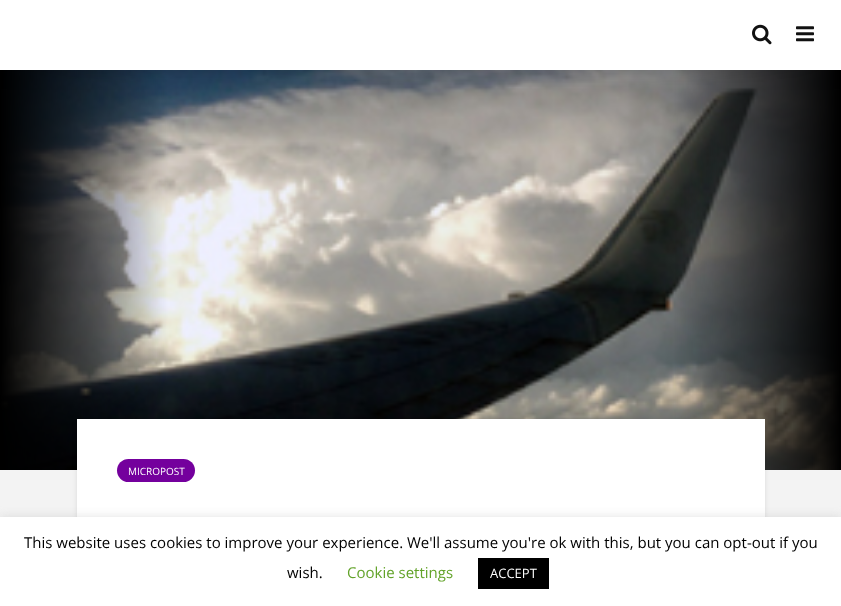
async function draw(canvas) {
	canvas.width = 841;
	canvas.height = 606;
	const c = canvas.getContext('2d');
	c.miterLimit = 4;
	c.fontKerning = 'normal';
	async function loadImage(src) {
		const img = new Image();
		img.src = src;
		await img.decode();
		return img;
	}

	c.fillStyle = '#f3f3f3';
	c.fillRect(0, 0, 841, 606);
	c.drawImage(await loadImage('img3.png'), 0, 70, 841, 400);
	c.fillStyle = '#00000026';
	c.filter = 'blur(10px)';
	c.beginPath();
	c.rect(0, 0, 841, 70);
	c.fill();
	c.filter = 'none';
	c.fillStyle = '#fff';
	c.fillRect(0, 0, 841, 70);
	c.drawImage(await loadImage('img1.png'), 752, 24, 20, 21);
	c.drawImage(await loadImage('img2.png'), 796, 26, 18, 16);
	c.fillStyle = '#0001011a';
	c.filter = 'blur(2.5px)';
	c.beginPath();
	c.rect(77, 422, 688, 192);
	c.fill();
	c.filter = 'none';
	c.fillStyle = '#fff';
	c.fillRect(77, 419, 688, 98);
	c.fillStyle = '#74009d';
	c.beginPath();
	c.roundRect(117, 459, 78, 23, 11.5);
	c.fill();
	c.font = '10px Open Sans';
	c.fillStyle = '#fff';
	c.fillText('MICROPOST', 128, 475);
	c.fillStyle = '#acabab4d';
	c.filter = 'blur(5px)';
	c.beginPath();
	c.rect(0, 516, 841, 89);
	c.fill();
	c.filter = 'none';
	c.fillStyle = '#fff';
	c.fillRect(0, 517, 841, 89);
	c.font = '15px Open Sans';
	c.fillStyle = '#000';
	c.fillText('This website uses cookies to improve your experience. We\'ll assume you\'re ok with this, but you can opt-out if you', 24, 548);
	c.fillText('wish.', 287, 578);
	c.fillStyle = '#62a329';
	c.fillText('Cookie settings', 347, 578);
	c.fillStyle = '#000';
	c.fillRect(478, 558, 71, 31);
	c.font = '13px Open Sans';
	c.fillStyle = '#fff';
	c.fillText('ACCEPT', 490, 578);
}

draw(document.querySelector('canvas'));
